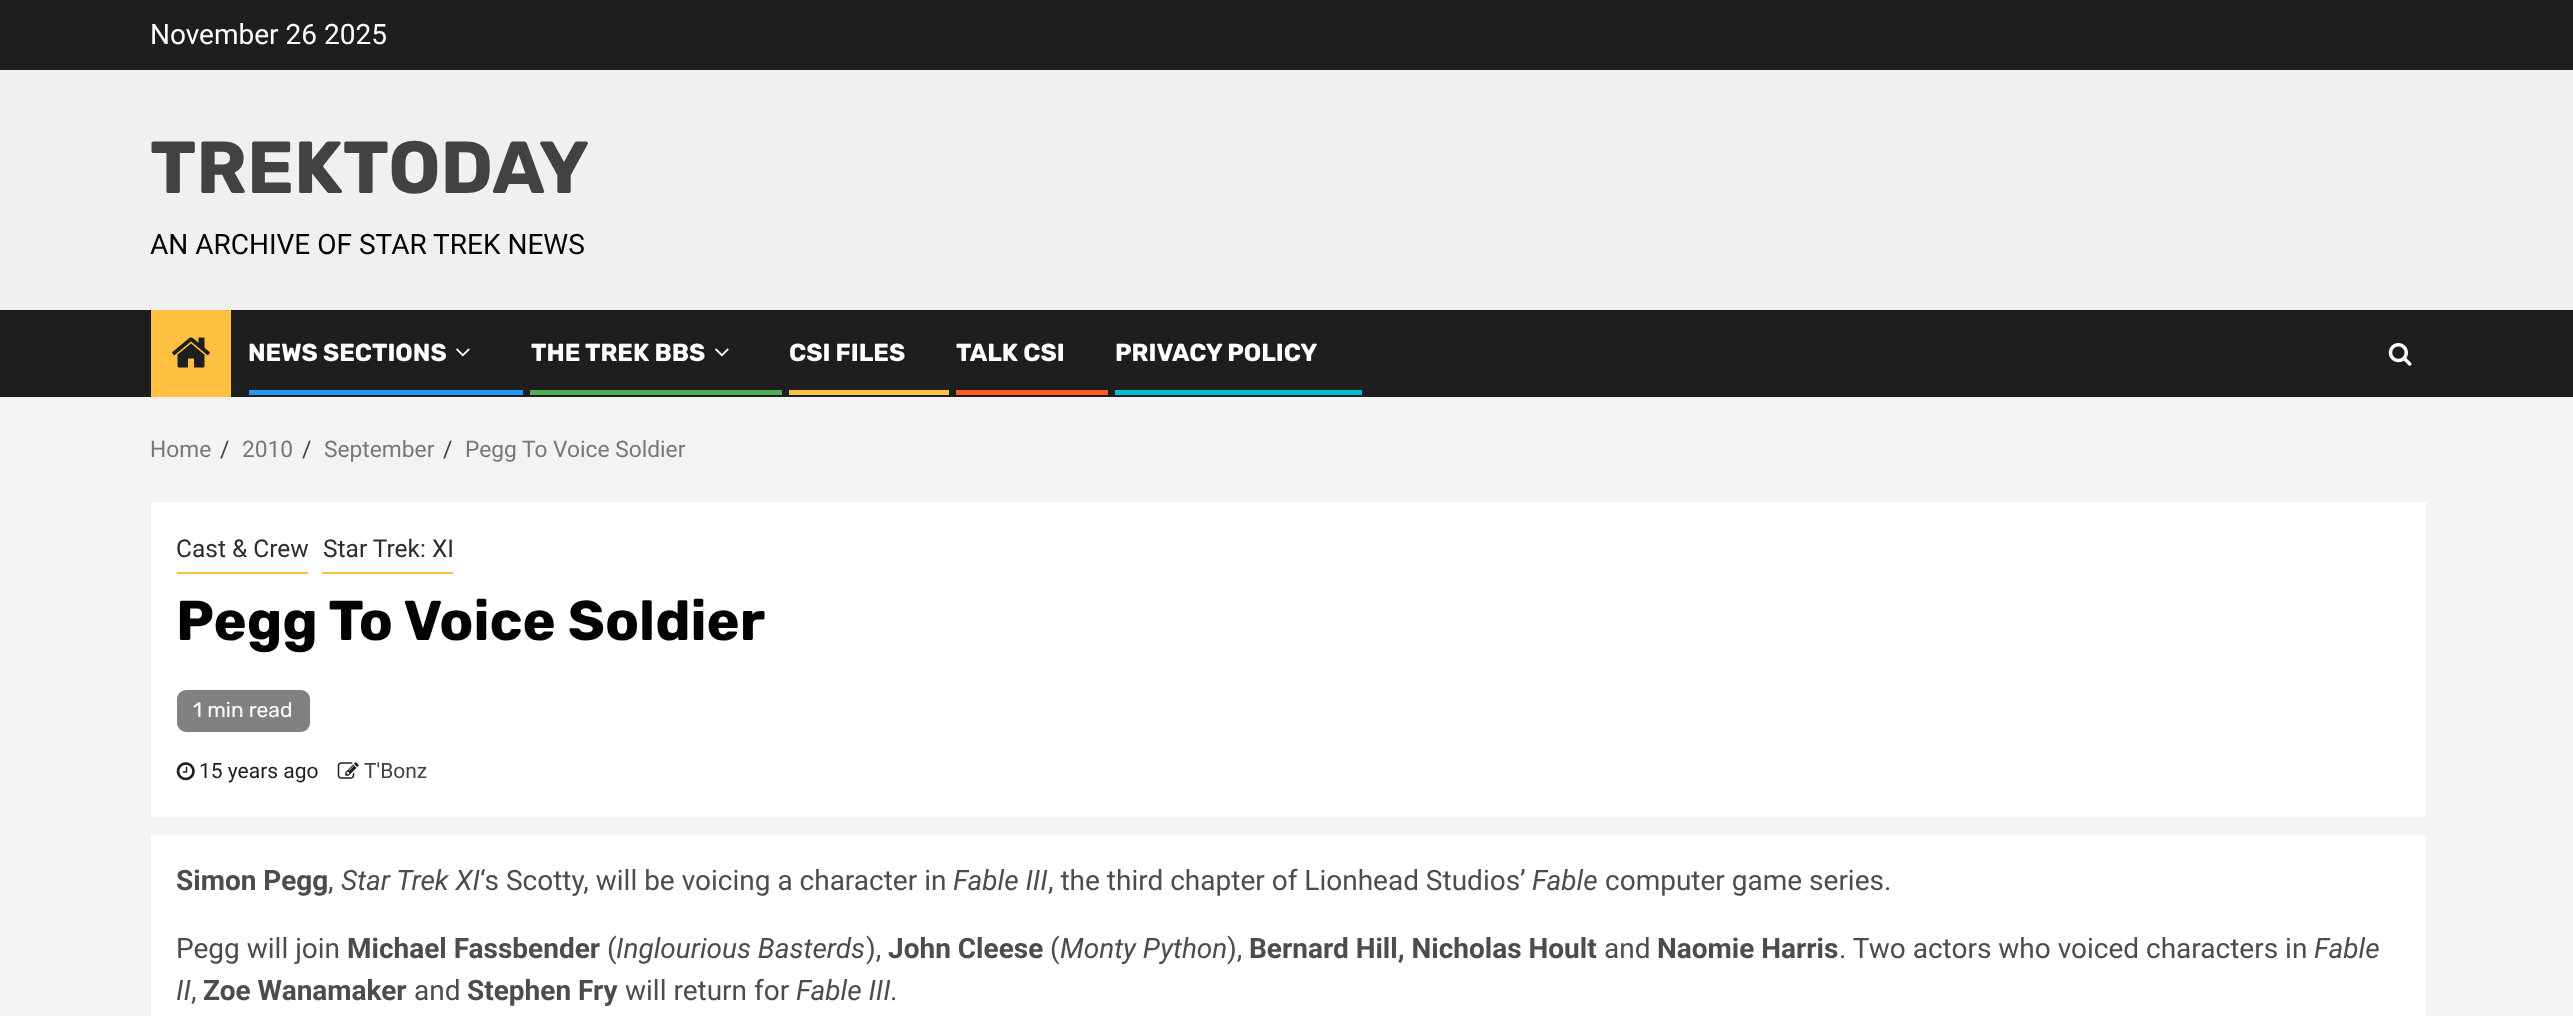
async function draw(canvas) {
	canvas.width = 2573;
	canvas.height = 1016;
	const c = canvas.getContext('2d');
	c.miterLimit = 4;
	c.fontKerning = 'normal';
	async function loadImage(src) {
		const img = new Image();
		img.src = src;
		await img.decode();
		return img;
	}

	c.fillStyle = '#f3f3f3';
	c.fillRect(0, 0, 2573, 1016);
	c.fillStyle = '#f0f0f0';
	c.fillRect(0, 70, 2573, 240);
	c.fillStyle = '#1e1e1e';
	c.fillRect(0, 0, 2573, 70);
	c.font = '28px Roboto';
	c.fillStyle = '#fff';
	c.fillText('November 26 2025', 150, 44);
	c.font = 'bold 73.5px Rubik';
	c.fillStyle = '#424242';
	c.fillText('TREKTODAY', 150, 193);
	c.font = '28px Roboto';
	c.fillStyle = '#030303';
	c.fillText('AN ARCHIVE OF STAR TREK NEWS', 150, 254);
	c.fillStyle = '#1e1e1e';
	c.fillRect(0, 310, 2573, 87);
	c.fillStyle = '#ffc041';
	c.fillRect(151, 310, 80, 87);
	c.drawImage(await loadImage('img1.png'), 172, 337, 38, 31);
	c.font = 'bold 24.5px Rubik';
	c.fillStyle = '#fff';
	c.fillText('NEWS SECTIONS', 248, 361);
	c.drawImage(await loadImage('img2.png'), 456, 348, 14, 9);
	c.fillStyle = '#2397f3';
	c.fillRect(249, 390, 274, 5);
	c.fillStyle = '#fff';
	c.fillText('THE TREK BBS', 531, 361);
	c.drawImage(await loadImage('img2.png'), 715, 348, 14, 9);
	c.fillStyle = '#4eb052';
	c.fillRect(530, 390, 252, 5);
	c.fillStyle = '#fff';
	c.fillText('CSI FILES', 789, 361);
	c.fillStyle = '#ffc041';
	c.fillRect(789, 390, 160, 5);
	c.fillStyle = '#fff';
	c.fillText('TALK CSI', 956, 361);
	c.fillStyle = '#ff5924';
	c.fillRect(956, 390, 152, 5);
	c.fillStyle = '#fff';
	c.fillText('PRIVACY POLICY', 1115, 361);
	c.fillStyle = '#03bdd4';
	c.fillRect(1115, 390, 247, 5);
	c.drawImage(await loadImage('img3.png'), 2388, 343, 24, 23);
	c.font = '22.75px Roboto';
	c.fillStyle = '#777';
	c.fillText('Home', 150, 457);
	c.fillStyle = '#3b4048';
	c.fillText('/', 220, 457);
	c.fillStyle = '#777';
	c.fillText('2010', 242, 457);
	c.fillStyle = '#3b4048';
	c.fillText('/', 302, 457);
	c.fillStyle = '#777';
	c.fillText('September', 324, 457);
	c.fillStyle = '#3b4048';
	c.fillText('/', 443, 457);
	c.fillStyle = '#777';
	c.fillText('Pegg To Voice Soldier', 465, 457);
	c.fillStyle = '#fff';
	c.fillRect(151, 502, 2275, 315);
	c.fillStyle = '#ffc041';
	c.fillRect(177, 572, 131, 2);
	c.font = '24.5px Roboto';
	c.fillStyle = '#2d2d2d';
	c.fillText('Cast & Crew', 176, 557);
	c.fillStyle = '#ffc041';
	c.fillRect(322, 572, 131, 2);
	c.fillStyle = '#2d2d2d';
	c.fillText('Star Trek: XI', 323, 557);
	c.font = 'bold 56px Rubik';
	c.fillStyle = '#030303';
	c.fillText('Pegg To Voice Soldier', 176, 640);
	c.fillStyle = '#818181';
	c.beginPath();
	c.roundRect(177, 690, 133, 42, 9);
	c.fill();
	c.font = '21px Rubik';
	c.fillStyle = '#fff';
	c.fillText('1 min read', 193, 717);
	c.drawImage(await loadImage('img4.png'), 176, 762, 19, 19);
	c.font = '21px Roboto';
	c.fillStyle = '#1e1e1e';
	c.fillText('15 years ago', 199, 778);
	c.drawImage(await loadImage('img5.png'), 337, 762, 22, 17);
	c.fillStyle = '#424242';
	c.fillText('T\'Bonz', 364, 778);
	c.fillStyle = '#fff';
	c.fillRect(151, 835, 2275, 181);
	c.font = 'bold 28px Roboto';
	c.fillStyle = '#4c4c4c';
	c.fillText('Simon Pegg', 176, 890);
	c.font = '28px Roboto';
	c.fillText(',', 328, 890);
	c.font = 'italic 28px Roboto';
	c.fillText('Star Trek XI', 341, 890);
	c.font = '28px Roboto';
	c.fillText('‘s Scotty, will be voicing a character in', 480, 890);
	c.font = 'italic 28px Roboto';
	c.fillText('Fable III', 953, 890);
	c.font = '28px Roboto';
	c.fillText(', the third chapter of Lionhead Studios’', 1048, 890);
	c.font = 'italic 28px Roboto';
	c.fillText('Fable', 1532, 890);
	c.font = '28px Roboto';
	c.fillText('computer game series.', 1605, 890);
	c.fillText('Pegg will join', 176, 958);
	c.font = 'bold 28px Roboto';
	c.fillText('Michael Fassbender', 347, 958);
	c.font = '28px Roboto';
	c.fillText('(', 607, 958);
	c.font = 'italic 28px Roboto';
	c.fillText('Inglourious Basterds', 616, 958);
	c.font = '28px Roboto';
	c.fillText('),', 866, 958);
	c.font = 'bold 28px Roboto';
	c.fillText('John Cleese', 888, 958);
	c.font = '28px Roboto';
	c.fillText('(', 1050, 958);
	c.font = 'italic 28px Roboto';
	c.fillText('Monty Python', 1060, 958);
	c.font = '28px Roboto';
	c.fillText('),', 1227, 958);
	c.font = 'bold 28px Roboto';
	c.fillText('Bernard Hill, Nicholas Hoult', 1249, 958);
	c.font = '28px Roboto';
	c.fillText('and', 1604, 958);
	c.font = 'bold 28px Roboto';
	c.fillText('Naomie Harris', 1657, 958);
	c.font = '28px Roboto';
	c.fillText('. Two actors who voiced characters in', 1839, 958);
	c.font = 'italic 28px Roboto';
	c.fillText('Fable', 2314, 958);
	c.fillText('II', 176, 1000);
	c.font = '28px Roboto';
	c.fillText(',', 191, 1000);
	c.font = 'bold 28px Roboto';
	c.fillText('Zoe Wanamaker', 203, 1000);
	c.font = '28px Roboto';
	c.fillText('and', 414, 1000);
	c.font = 'bold 28px Roboto';
	c.fillText('Stephen Fry', 467, 1000);
	c.font = '28px Roboto';
	c.fillText('will return for', 625, 1000);
	c.font = 'italic 28px Roboto';
	c.fillText('Fable III', 796, 1000);
	c.font = '28px Roboto';
	c.fillText('.', 890, 1000);
}

draw(document.querySelector('canvas'));
